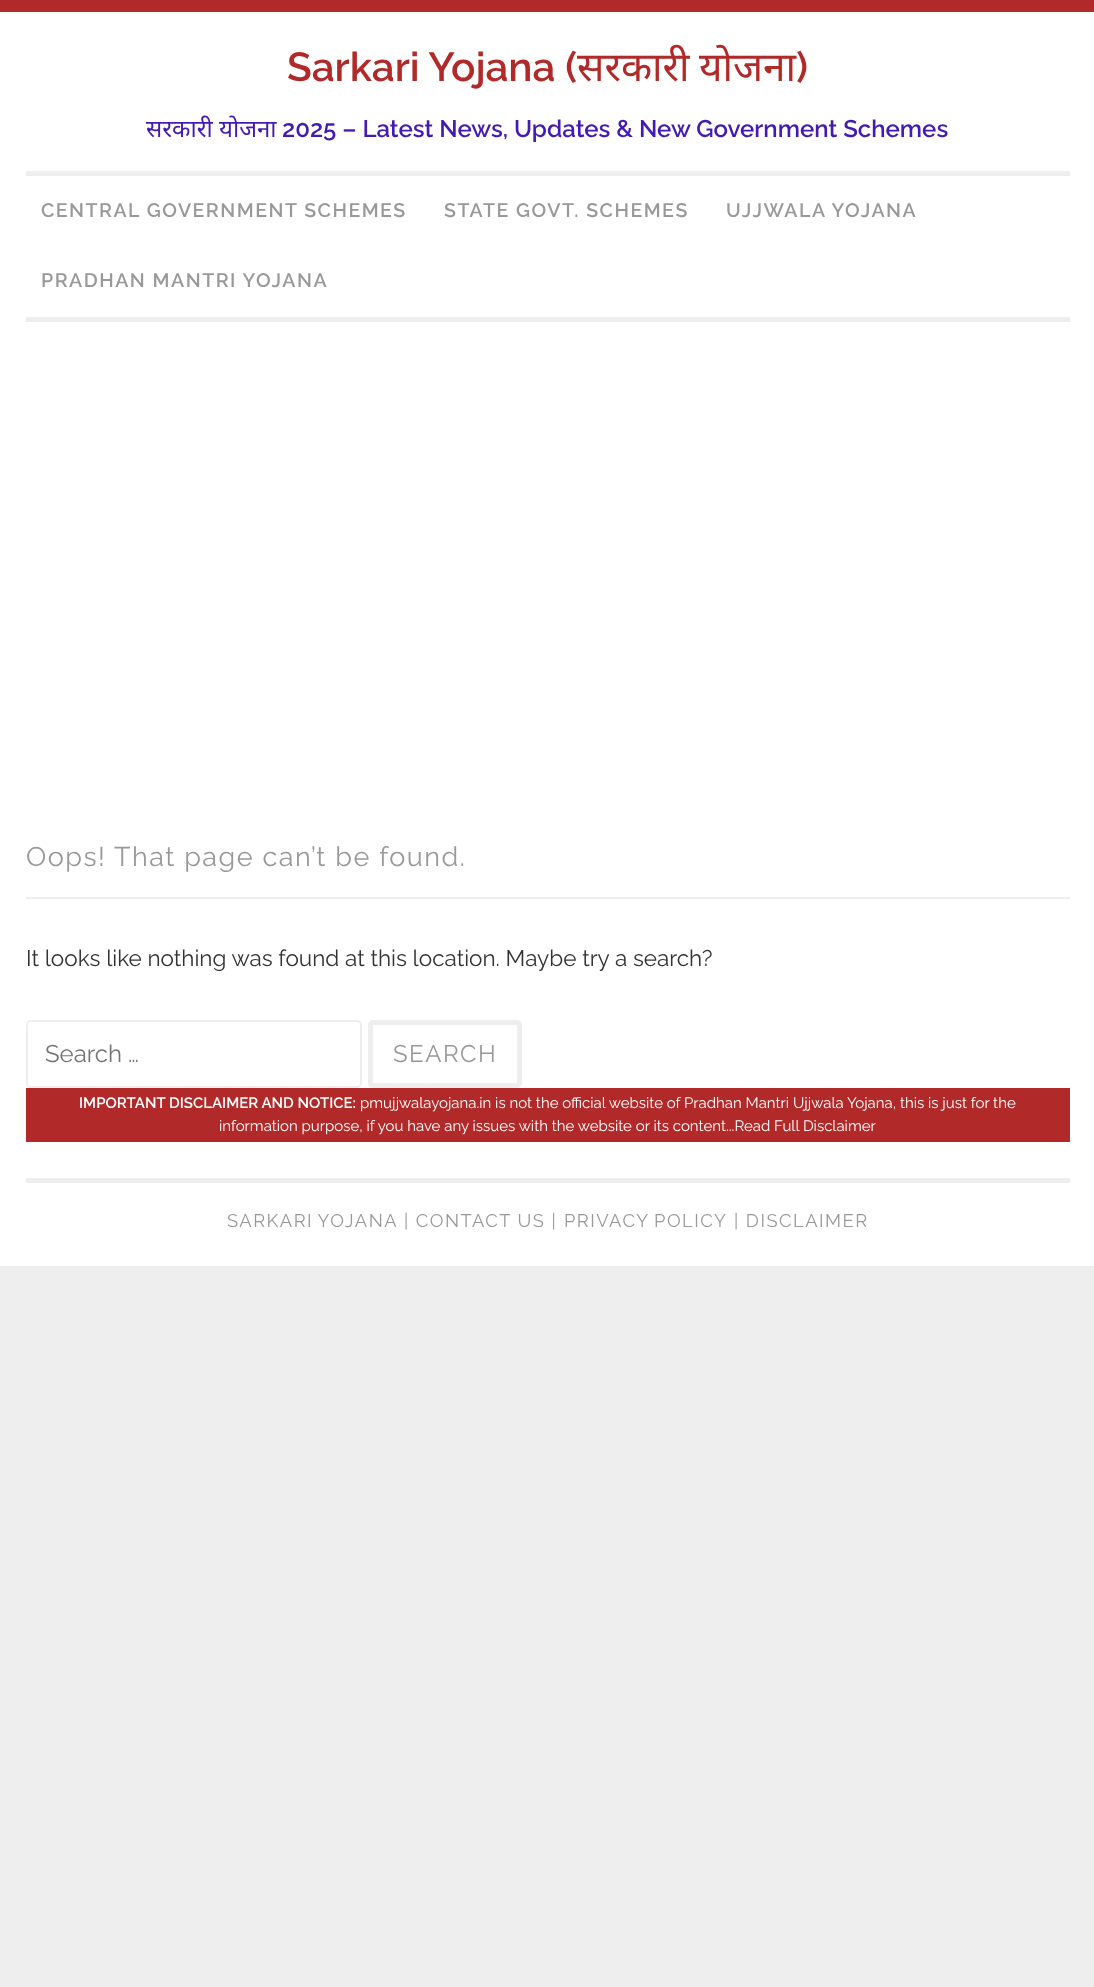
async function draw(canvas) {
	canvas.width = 1094;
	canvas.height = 1987;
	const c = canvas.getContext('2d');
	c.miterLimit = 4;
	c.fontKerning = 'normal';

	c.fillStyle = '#eee';
	c.fillRect(0, 0, 1094, 1987);
	for (const [x, y, w, h, color] of [
		[0, 12, 1094, 1254, '#fff'],
		[0, 0, 1094, 12, '#b22929'],
		[26, 317, 1044, 5, '#eee'],
	]) {
		c.fillStyle = color;
		c.fillRect(x, y, w, h);
	}
	c.font = '600 40.5px Raleway';
	c.fillStyle = '#b22929';
	c.fillText('Sarkari Yojana (', 287, 81);
	c.font = '40.5px Noto Sans';
	c.fillText('सरकारी', 577, 81);
	c.fillText('योजना', 699, 81);
	c.font = '600 40.5px Raleway';
	c.fillText(')', 796, 81);
	c.font = '24px Noto Sans';
	c.fillStyle = '#431ab4';
	c.fillText('सरकारी', 146, 137);
	c.fillText('योजना', 219, 137);
	c.font = '600 24px Raleway';
	c.fillText('2025 – Latest News, Updates & New Government Schemes', 282, 137);
	c.fillStyle = '#eee';
	c.fillRect(26, 171, 1044, 5);
	c.letterSpacing = '1.5px';
	c.font = '600 19.5px Raleway';
	c.fillStyle = '#999';
	for (const [text, x, y] of [
		['CENTRAL GOVERNMENT SCHEMES', 41, 217],
		['STATE GOVT. SCHEMES', 444, 217],
		['UJJWALA YOJANA', 726, 217],
		['PRADHAN MANTRI YOJANA', 41, 287],
	]) {
		c.fillText(text, x, y);
	}
	c.fillStyle = '#eee';
	c.fillRect(26, 897, 1044, 2);
	c.font = '27px Raleway';
	c.fillStyle = '#999';
	c.fillText('Oops! That page can’t be found.', 26, 866);
	c.letterSpacing = '0px';
	c.font = '22.5px Raleway';
	c.fillStyle = '#333';
	c.fillText('It looks like nothing was found at this location. Maybe try a search?', 26, 966);
	c.beginPath();
	c.roundRect(27, 1021, 334, 66, 4);
	c.strokeStyle = '#eee';
	c.lineWidth = 2;
	c.stroke();
	c.font = '24px Raleway';
	c.fillStyle = '#757575';
	c.fillText('Search …', 45, 1062);
	c.beginPath();
	c.roundRect(370.5, 1022.5, 149, 63, 2.5);
	c.lineWidth = 5;
	c.stroke();
	c.letterSpacing = '1.5px';
	c.fillStyle = '#999';
	c.fillText('SEARCH', 393, 1062);
	c.fillStyle = '#b22929';
	c.fillRect(26, 1088, 1044, 54);
	c.letterSpacing = '0px';
	c.font = '600 15px Raleway';
	c.fillStyle = '#fff';
	c.fillText('IMPORTANT DISCLAIMER AND NOTICE:', 79, 1108);
	c.font = '15px Raleway';
	c.fillText('pmujjwalayojana.in is not the official website of Pradhan Mantri Ujjwala Yojana, this is just for the', 360, 1108);
	c.fillText('information purpose, if you have any issues with the website or its content...Read Full Disclaimer', 219, 1131);
	c.fillStyle = '#eee';
	c.fillRect(26, 1178, 1044, 5);
	c.letterSpacing = '1.5px';
	c.wordSpacing = '-1px';
	c.font = '18.25px Raleway';
	c.fillStyle = '#999';
	c.fillText('SARKARI YOJANA', 227, 1227);
	c.wordSpacing = '0px';
	c.fillText('| CONTACT US |', 404, 1227);
	c.wordSpacing = '-1px';
	c.fillText('PRIVACY POLICY', 564, 1227);
	c.wordSpacing = '0px';
	c.fillText('| DISCLAIMER', 734, 1227);
}

draw(document.querySelector('canvas'));
